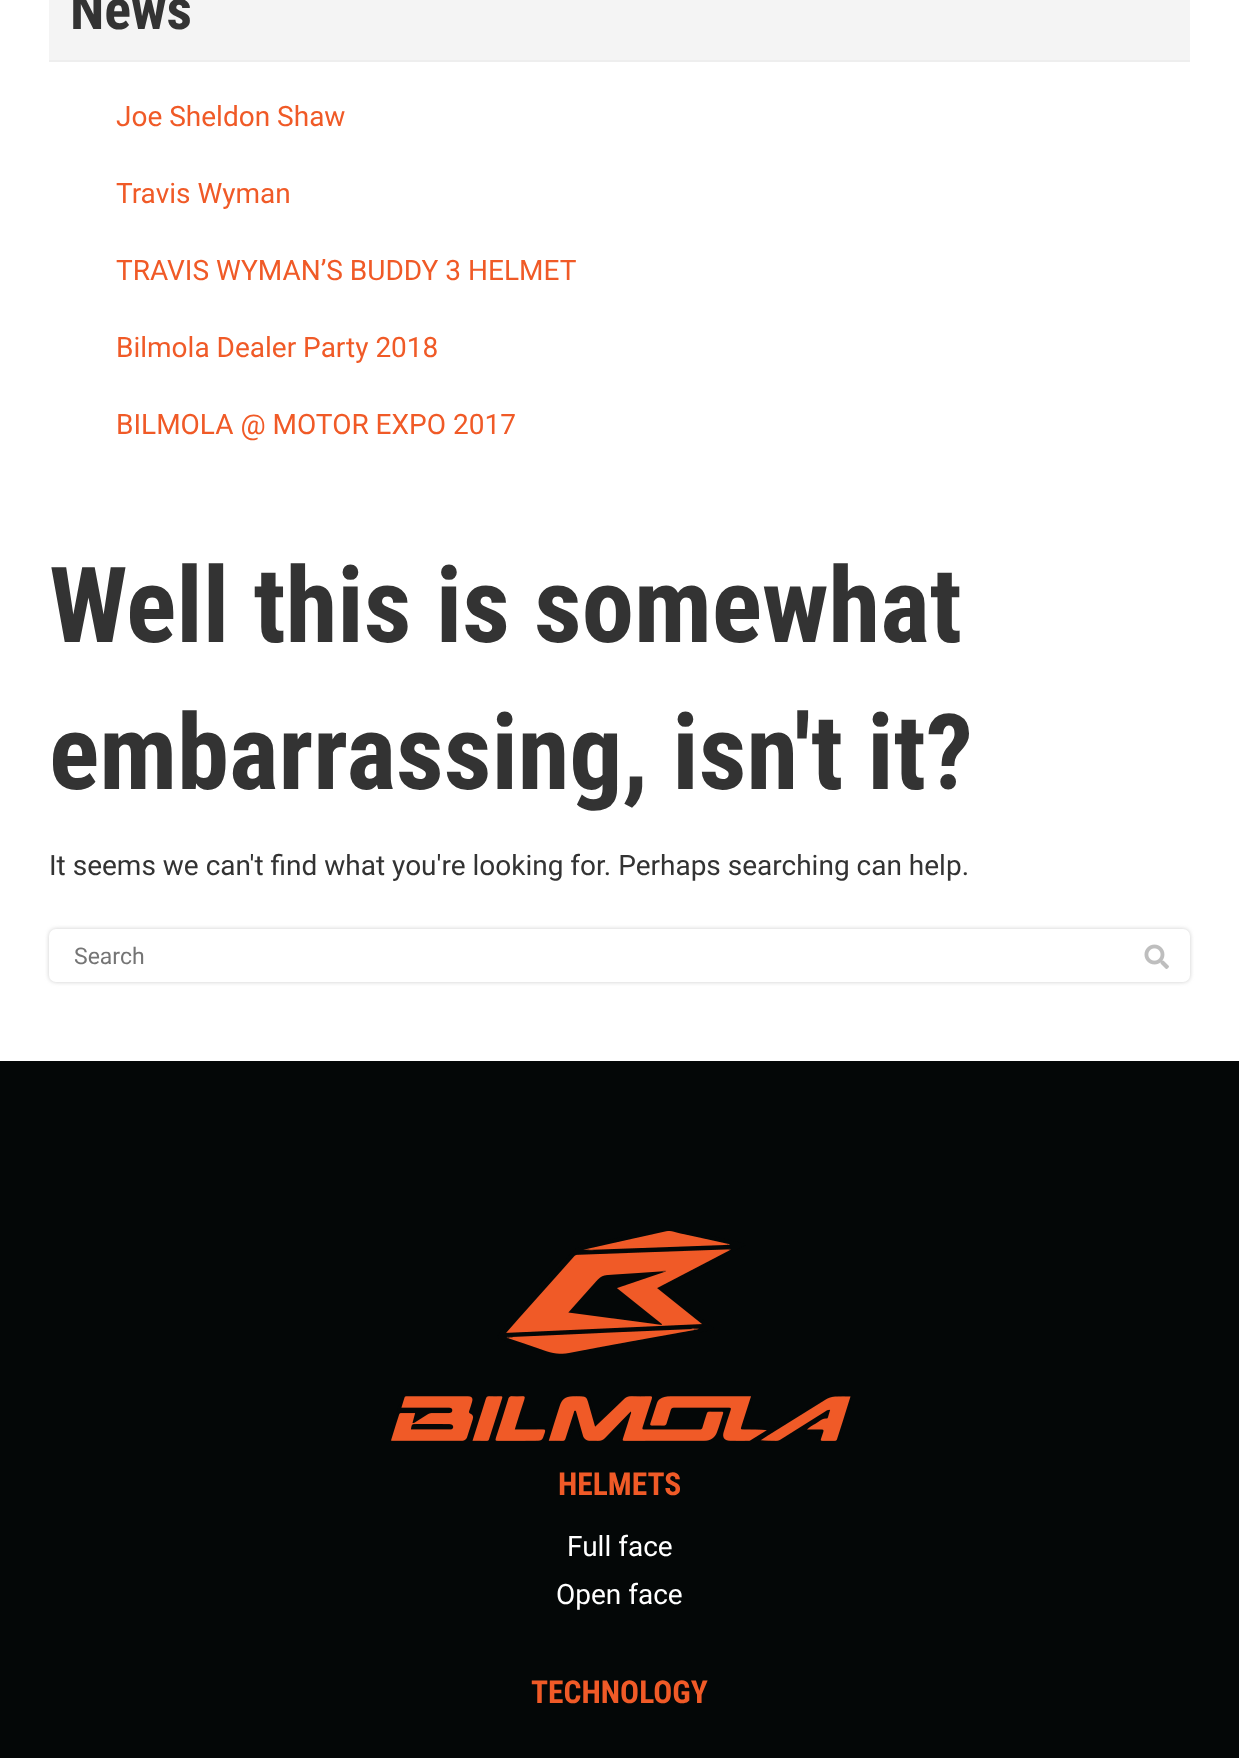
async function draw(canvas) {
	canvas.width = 1239;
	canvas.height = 1758;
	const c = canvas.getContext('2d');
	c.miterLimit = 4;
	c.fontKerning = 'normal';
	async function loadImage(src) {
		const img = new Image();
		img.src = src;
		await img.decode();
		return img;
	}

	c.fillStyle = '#fff';
	c.fillRect(0, 0, 1239, 1758);
	c.fillStyle = '#f4f4f4';
	c.fillRect(49, 0, 1141, 60);
	c.fillStyle = '#eee';
	c.fillRect(49, 60, 1141, 2);
	c.font = 'bold 56px Roboto Condensed';
	c.fillStyle = '#333';
	c.fillText('News', 70, 29);
	c.font = '28px Roboto';
	c.fillStyle = '#f05a27';
	for (const [text, x, y] of [
		['Joe Sheldon Shaw', 116, 126],
		['Travis Wyman', 116, 203],
		['TRAVIS WYMAN’S BUDDY 3 HELMET', 116, 280],
		['Bilmola Dealer Party 2018', 116, 357],
		['BILMOLA @ MOTOR EXPO 2017', 116, 434],
	]) {
		c.fillText(text, x, y);
	}
	c.font = 'bold 105px Roboto Condensed';
	c.fillStyle = '#333';
	c.fillText('Well this is somewhat', 49, 642);
	c.fillText('embarrassing, isn\'t it?', 49, 789);
	c.font = '28px Roboto';
	c.fillText('It seems we can\'t find what you\'re looking for. Perhaps searching can help.', 49, 875);
	c.fillStyle = '#ccc';
	c.filter = 'blur(2px)';
	c.beginPath();
	c.roundRect(49, 929, 1141, 53, 7);
	c.fill();
	c.filter = 'none';
	c.fillStyle = '#fff';
	c.beginPath();
	c.roundRect(49, 929, 1141, 53, 7);
	c.fill();
	c.font = '23px Roboto';
	c.fillStyle = '#757575';
	c.fillText('Search', 74, 964);
	c.drawImage(await loadImage('img1.png'), 1144, 944, 25, 25);
	c.fillStyle = '#040707';
	c.fillRect(0, 1061, 1239, 697);
	c.drawImage(await loadImage('img2.png'), 391, 1231, 460, 210);
	c.font = 'bold 31.5px Roboto Condensed';
	c.fillStyle = '#f05a27';
	c.fillText('HELMETS', 558, 1495);
	c.font = '28px Roboto';
	c.fillStyle = '#fff';
	c.fillText('Full face', 567, 1556);
	c.fillText('Open face', 556, 1604);
	c.font = 'bold 31.5px Roboto Condensed';
	c.fillStyle = '#f05a27';
	c.fillText('TECHNOLOGY', 531, 1703);
}

draw(document.querySelector('canvas'));
